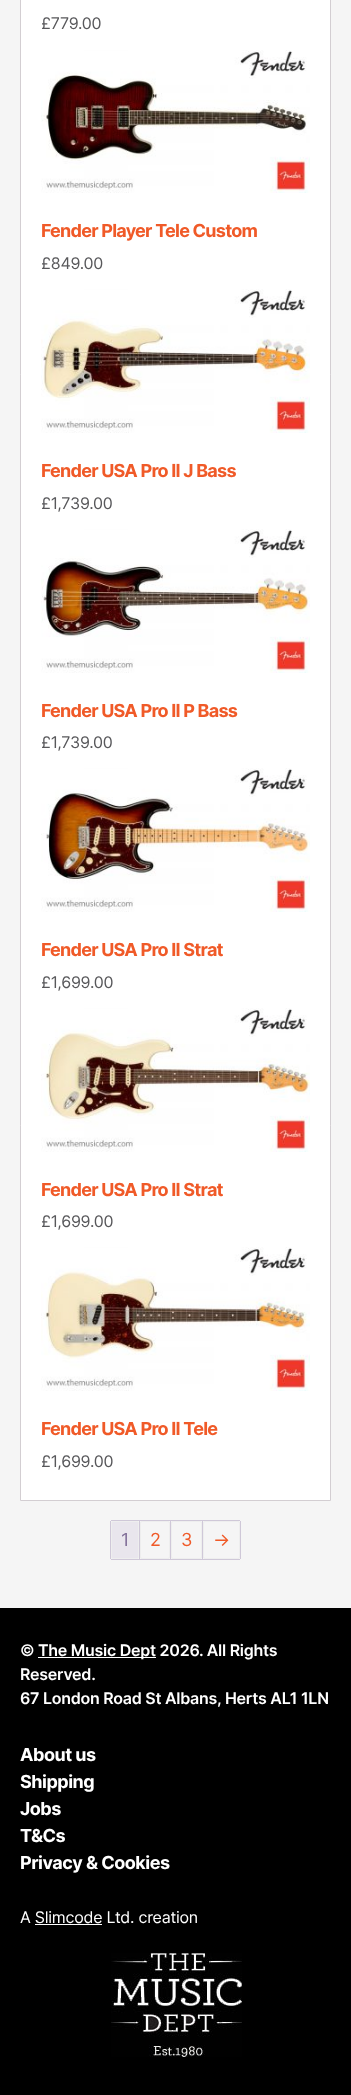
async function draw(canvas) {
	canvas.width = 351;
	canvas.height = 2095;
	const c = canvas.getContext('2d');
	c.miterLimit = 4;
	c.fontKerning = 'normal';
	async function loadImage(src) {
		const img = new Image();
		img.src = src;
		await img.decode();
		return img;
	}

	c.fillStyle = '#f5f5f5';
	c.fillRect(0, 0, 351, 2095);
	c.fillStyle = '#fff';
	c.beginPath();
	c.rect(20.5, -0.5, 310, 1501);
	c.fill();
	c.strokeStyle = '#d3ced2';
	c.stroke();
	c.letterSpacing = '-0.25px';
	c.font = '16px Inter';
	c.fillStyle = '#58585b';
	c.fillText('£779.00', 41, 29);
	c.drawImage(await loadImage('img1.png'), 41, 50, 269, 143);
	c.letterSpacing = '-0.75px';
	c.font = 'bold 18px Inter';
	c.fillStyle = '#f05a28';
	c.fillText('Fender Player Tele Custom', 41, 237);
	c.letterSpacing = '-0.25px';
	c.font = '16px Inter';
	c.fillStyle = '#58585b';
	c.fillText('£849.00', 41, 269);
	c.drawImage(await loadImage('img2.png'), 41, 289, 269, 144);
	c.letterSpacing = '-0.75px';
	c.font = 'bold 18px Inter';
	c.fillStyle = '#f05a28';
	c.fillText('Fender USA Pro II J Bass', 41, 477);
	c.letterSpacing = '-0.25px';
	c.font = '16px Inter';
	c.fillStyle = '#58585b';
	c.fillText('£1,739.00', 41, 509);
	c.drawImage(await loadImage('img3.png'), 41, 529, 269, 144);
	c.letterSpacing = '-0.75px';
	c.font = 'bold 18px Inter';
	c.fillStyle = '#f05a28';
	c.fillText('Fender USA Pro II P Bass', 41, 717);
	c.letterSpacing = '-0.25px';
	c.font = '16px Inter';
	c.fillStyle = '#58585b';
	c.fillText('£1,739.00', 41, 748);
	c.drawImage(await loadImage('img4.png'), 41, 768, 269, 144);
	c.letterSpacing = '-0.75px';
	c.font = 'bold 18px Inter';
	c.fillStyle = '#f05a28';
	c.fillText('Fender USA Pro II Strat', 41, 956);
	c.letterSpacing = '-0.25px';
	c.font = '16px Inter';
	c.fillStyle = '#58585b';
	c.fillText('£1,699.00', 41, 988);
	c.drawImage(await loadImage('img5.png'), 41, 1008, 269, 144);
	c.letterSpacing = '-0.75px';
	c.font = 'bold 18px Inter';
	c.fillStyle = '#f05a28';
	c.fillText('Fender USA Pro II Strat', 41, 1196);
	c.letterSpacing = '-0.25px';
	c.font = '16px Inter';
	c.fillStyle = '#58585b';
	c.fillText('£1,699.00', 41, 1227);
	c.drawImage(await loadImage('img6.png'), 41, 1247, 269, 144);
	c.letterSpacing = '-0.75px';
	c.font = 'bold 18px Inter';
	c.fillStyle = '#f05a28';
	c.fillText('Fender USA Pro II Tele', 41, 1435);
	c.letterSpacing = '-0.25px';
	c.font = '16px Inter';
	c.fillStyle = '#58585b';
	c.fillText('£1,699.00', 41, 1467);
	for (const [x, y, w, h, color] of [
		[111, 1520, 129, 1, '#cfc8d8'],
		[111, 1559, 129, 1, '#cfc8d8'],
		[110, 1521, 1, 38, '#cfc8d8'],
		[139, 1521, 1, 38, '#cfc8d8'],
	]) {
		c.fillStyle = color;
		c.fillRect(x, y, w, h);
	}
	c.fillStyle = '#e9e6ed';
	c.beginPath();
	c.roundRect(111.5, 1521.5, 27, 37, 1.5);
	c.fill();
	c.strokeStyle = '#eee';
	c.stroke();
	c.font = '18px Inter';
	c.fillStyle = '#816f98';
	c.fillText('1', 121, 1546);
	c.fillStyle = '#cfc8d8';
	c.fillRect(170, 1521, 1, 38);
	c.beginPath();
	c.roundRect(140.5, 1521.5, 29, 37, 1.5);
	c.stroke();
	c.fillStyle = '#f05a28';
	c.fillText('2', 150, 1546);
	c.fillStyle = '#cfc8d8';
	c.fillRect(202, 1521, 1, 38);
	c.beginPath();
	c.roundRect(171.5, 1521.5, 30, 37, 1.5);
	c.stroke();
	c.fillStyle = '#f05a28';
	c.fillText('3', 181, 1546);
	c.fillStyle = '#cfc8d8';
	c.fillRect(240, 1521, 1, 38);
	c.beginPath();
	c.roundRect(203.5, 1521.5, 36, 37, 1.5);
	c.stroke();
	c.fillStyle = '#f05a28';
	c.fillText('→', 213, 1546);
	c.fillStyle = '#000';
	c.fillRect(0, 1608, 351, 487);
	c.font = '600 16px Inter';
	c.fillStyle = '#fff';
	c.fillText('©', 20, 1656);
	c.fillRect(38, 1657, 118, 1);
	for (const [text, x, y] of [
		['The Music Dept 2026. All Rights', 38, 1656],
		['Reserved.', 20, 1680],
		['67 London Road St Albans, Herts AL1 1LN', 20, 1704],
	]) {
		c.fillText(text, x, y);
	}
	c.letterSpacing = '-0.5px';
	c.font = 'bold 18px Inter';
	for (const [text, x, y] of [
		['About us', 20, 1761],
		['Shipping', 20, 1788],
		['Jobs', 20, 1815],
		['T&Cs', 20, 1842],
		['Privacy & Cookies', 20, 1869],
	]) {
		c.fillText(text, x, y);
	}
	c.letterSpacing = '-0.25px';
	c.font = '16px Inter';
	c.fillText('A Slimcode Ltd. creation', 20, 1923);
	c.fillRect(35, 1924, 67, 1);
	c.drawImage(await loadImage('img7.png'), 111, 1953, 131, 104);
}

draw(document.querySelector('canvas'));
